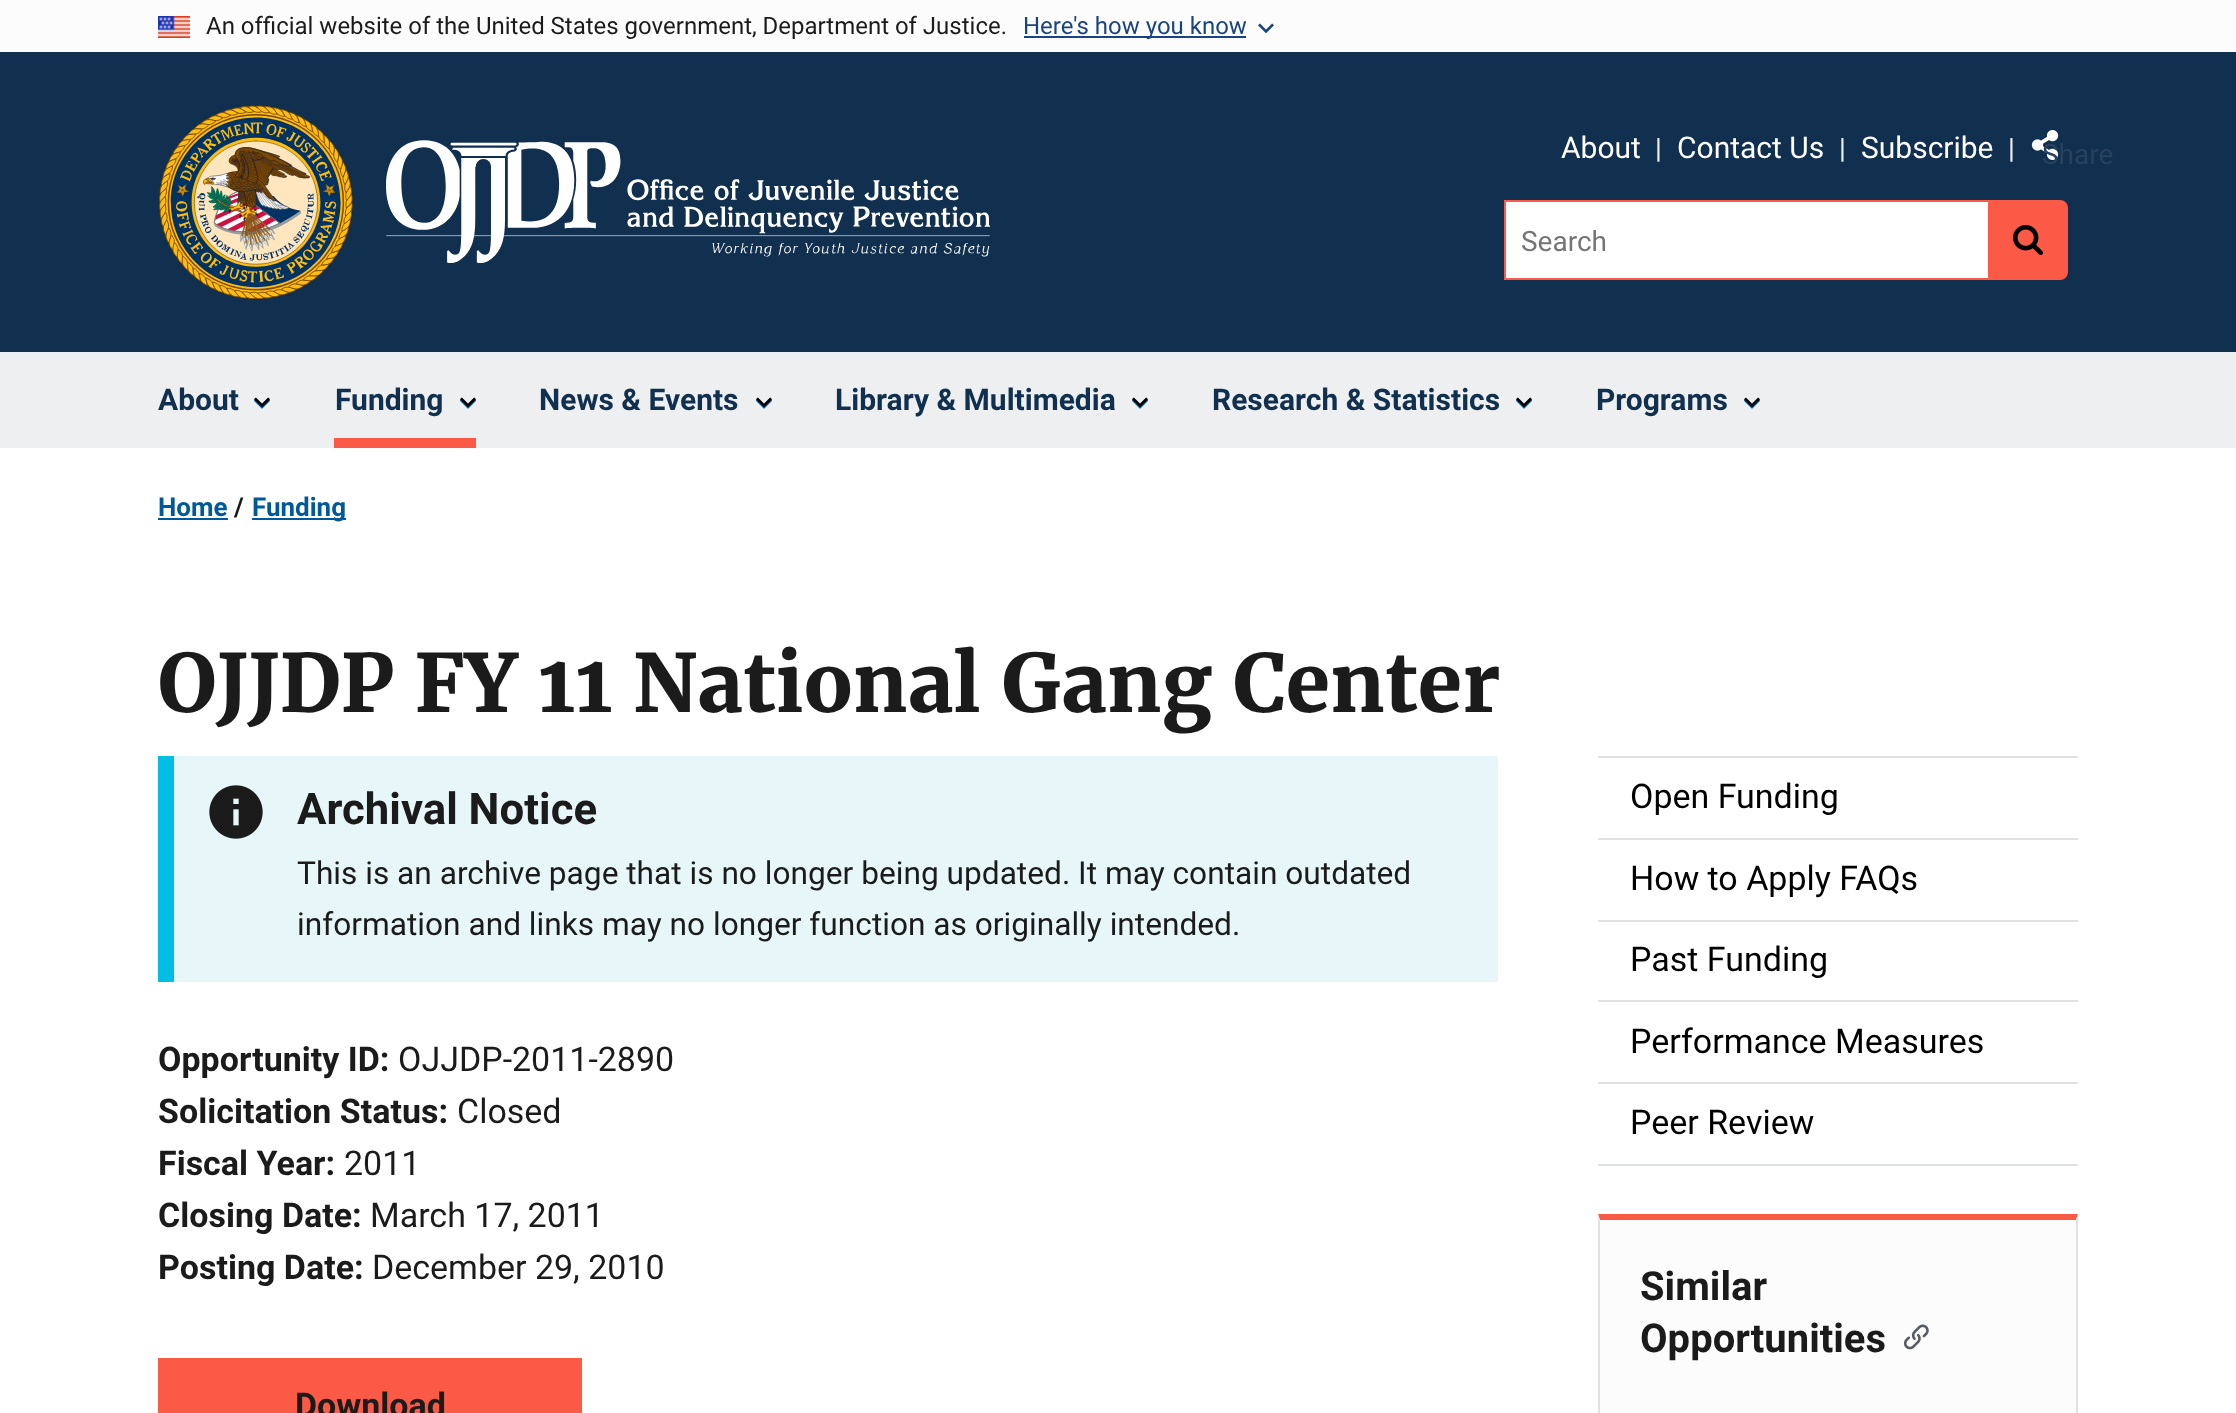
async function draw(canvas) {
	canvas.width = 2236;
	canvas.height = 1413;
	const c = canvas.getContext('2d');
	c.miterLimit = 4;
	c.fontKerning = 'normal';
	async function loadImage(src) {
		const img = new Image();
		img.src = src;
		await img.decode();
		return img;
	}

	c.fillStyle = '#fff';
	c.fillRect(0, 0, 2236, 1413);
	c.fillStyle = '#fcfcfc';
	c.fillRect(0, 0, 2236, 52);
	c.drawImage(await loadImage('img1.png'), 158, 16, 32, 22);
	c.font = '24px Roboto';
	c.fillStyle = '#1b1b1b';
	c.fillText('An official website of the United States government, Department of Justice.', 206, 34);
	c.fillStyle = '#1a4480';
	c.fillRect(1024, 36, 222, 2);
	c.fillText('Here\'s how you know', 1023, 34);
	c.drawImage(await loadImage('img2.png'), 1258, 23, 16, 11);
	c.fillStyle = '#112f4e';
	c.fillRect(0, 52, 2236, 300);
	c.drawImage(await loadImage('img3.png'), 159, 105, 194, 195);
	c.drawImage(await loadImage('img4.png'), 386, 140, 604, 123);
	c.fillStyle = '#edeff0';
	c.fillRect(0, 352, 2236, 96);
	c.font = '30px Roboto';
	c.fillStyle = '#fff';
	c.fillText('About', 1561, 158);
	c.font = '28px Roboto';
	c.fillStyle = '#edeff0';
	c.fillText('|', 1655, 158);
	c.font = '30px Roboto';
	c.fillStyle = '#fff';
	c.fillText('Contact Us', 1677, 158);
	c.font = '28px Roboto';
	c.fillStyle = '#edeff0';
	c.fillText('|', 1839, 158);
	c.font = '30px Roboto';
	c.fillStyle = '#fff';
	c.fillText('Subscribe', 1861, 158);
	c.font = '28px Roboto';
	c.fillStyle = '#edeff0';
	c.fillText('|', 2008, 158);
	c.drawImage(await loadImage('img5.png'), 2031, 130, 28, 30);
	c.fillStyle = '#27425e';
	c.fillText('Share', 2042, 164);
	for (const [x, y, w, h, color] of [
		[1506, 202, 482, 76, '#fff'],
		[1504, 200, 484, 2, '#fb5a47'],
		[1504, 278, 484, 2, '#fb5a47'],
		[1504, 200, 2, 80, '#fb5a47'],
	]) {
		c.fillStyle = color;
		c.fillRect(x, y, w, h);
	}
	c.fillStyle = '#757575';
	c.fillText('Search', 1521, 251);
	c.fillStyle = '#fb5a47';
	c.beginPath();
	c.roundRect(1988, 200, 80, 80, [0, 8, 8, 0]);
	c.fill();
	c.drawImage(await loadImage('img6.png'), 2012, 224, 31, 31);
	c.drawImage(await loadImage('img7.png'), 254, 399, 16, 10);
	c.font = 'bold 30px Roboto';
	c.fillStyle = '#112f4e';
	c.fillText('About', 158, 410);
	c.drawImage(await loadImage('img8.png'), 254, 397, 16, 11);
	c.drawImage(await loadImage('img7.png'), 460, 399, 16, 10);
	c.fillText('Funding', 335, 410);
	c.drawImage(await loadImage('img8.png'), 460, 397, 16, 11);
	c.fillStyle = '#fb5a47';
	c.fillRect(334, 438, 142, 10);
	c.drawImage(await loadImage('img7.png'), 756, 399, 16, 10);
	c.fillStyle = '#112f4e';
	c.fillText('News & Events', 539, 410);
	c.drawImage(await loadImage('img8.png'), 756, 397, 16, 11);
	c.drawImage(await loadImage('img7.png'), 1132, 399, 16, 10);
	c.fillText('Library & Multimedia', 835, 410);
	c.drawImage(await loadImage('img8.png'), 1132, 397, 16, 11);
	c.drawImage(await loadImage('img7.png'), 1516, 399, 16, 10);
	c.fillText('Research & Statistics', 1212, 410);
	c.drawImage(await loadImage('img8.png'), 1516, 397, 16, 11);
	c.drawImage(await loadImage('img7.png'), 1744, 399, 16, 10);
	c.fillText('Programs', 1596, 410);
	c.drawImage(await loadImage('img8.png'), 1744, 397, 16, 11);
	c.font = 'bold 26px Roboto';
	c.fillStyle = '#005999';
	c.fillText('Home', 158, 516);
	c.fillRect(158, 518, 70, 2);
	c.fillStyle = '#1b1b1b';
	c.fillText('/', 234, 516);
	c.fillStyle = '#005999';
	c.fillRect(252, 518, 94, 2);
	c.fillText('Funding', 252, 516);
	c.font = 'bold 80px Merriweather';
	c.fillStyle = '#1b1b1b';
	c.fillText('OJJDP FY 11 National Gang Center', 158, 712);
	c.fillStyle = '#e7f6f8';
	c.fillRect(174, 756, 1324, 226);
	c.fillStyle = '#00bde3';
	c.fillRect(158, 756, 16, 226);
	c.drawImage(await loadImage('img9.png'), 209, 785, 54, 54);
	c.font = 'bold 43.75px Roboto';
	c.fillStyle = '#1b1b1b';
	c.fillText('Archival Notice', 297, 824);
	c.font = '31.7px Roboto';
	c.fillText('This is an archive page that is no longer being updated. It may contain outdated', 297, 884);
	c.fillText('information and links may no longer function as originally intended.', 297, 935);
	c.font = 'bold 34px Roboto';
	c.fillText('Opportunity ID:', 158, 1071);
	c.font = '34px Roboto';
	c.fillText('OJJDP-2011-2890', 398, 1071);
	c.font = 'bold 34px Roboto';
	c.fillText('Solicitation Status:', 158, 1123);
	c.font = '34px Roboto';
	c.fillText('Closed', 457, 1123);
	c.font = 'bold 34px Roboto';
	c.fillText('Fiscal Year:', 158, 1175);
	c.font = '34px Roboto';
	c.fillText('2011', 344, 1175);
	c.font = 'bold 34px Roboto';
	c.fillText('Closing Date:', 158, 1227);
	c.font = '34px Roboto';
	c.fillText('March 17, 2011', 370, 1227);
	c.font = 'bold 34px Roboto';
	c.fillText('Posting Date:', 158, 1279);
	c.font = '34px Roboto';
	c.fillText('December 29, 2010', 372, 1279);
	c.fillStyle = '#fb5a47';
	c.fillRect(158, 1358, 424, 55);
	c.font = 'bold 34px Roboto';
	c.fillStyle = '#1b1b1b';
	c.fillText('Download', 295, 1417);
	c.fillStyle = '#dfe1e2';
	c.fillRect(1598, 1164, 480, 2);
	c.fillRect(1598, 756, 480, 2);
	c.font = '34px Roboto';
	c.fillStyle = '#000';
	c.fillText('Open Funding', 1630, 808);
	c.fillStyle = '#dfe1e2';
	c.fillRect(1598, 838, 480, 2);
	c.fillStyle = '#000';
	c.fillText('How to Apply FAQs', 1630, 890);
	c.fillStyle = '#dfe1e2';
	c.fillRect(1598, 920, 480, 2);
	c.fillStyle = '#000';
	c.fillText('Past Funding', 1630, 971);
	c.fillStyle = '#dfe1e2';
	c.fillRect(1598, 1000, 480, 2);
	c.fillStyle = '#000';
	c.fillText('Performance Measures', 1630, 1053);
	c.fillStyle = '#dfe1e2';
	c.fillRect(1598, 1082, 480, 2);
	c.fillStyle = '#000';
	c.fillText('Peer Review', 1630, 1134);
	c.fillStyle = '#fcfcfc';
	c.fillRect(1600, 1220, 476, 193);
	c.fillStyle = '#fb5a47';
	c.beginPath();
	c.moveTo(1598, 1214);
	c.lineTo(2078, 1214);
	c.lineTo(2076, 1220);
	c.lineTo(1600, 1220);
	c.closePath();
	c.fill();
	c.fillStyle = '#dfe1e2';
	c.beginPath();
	c.moveTo(2078, 1214);
	c.lineTo(2078, 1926);
	c.lineTo(2076, 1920);
	c.lineTo(2076, 1220);
	c.closePath();
	c.fill();
	c.beginPath();
	c.moveTo(1598, 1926);
	c.lineTo(1598, 1214);
	c.lineTo(1600, 1220);
	c.lineTo(1600, 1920);
	c.closePath();
	c.fill();
	c.font = 'bold 40px Roboto';
	c.fillStyle = '#1b1b1b';
	c.fillText('Similar', 1640, 1300);
	c.fillText('Opportunities', 1640, 1352);
	c.drawImage(await loadImage('img10.png'), 1903, 1324, 26, 26);
}

draw(document.querySelector('canvas'));
